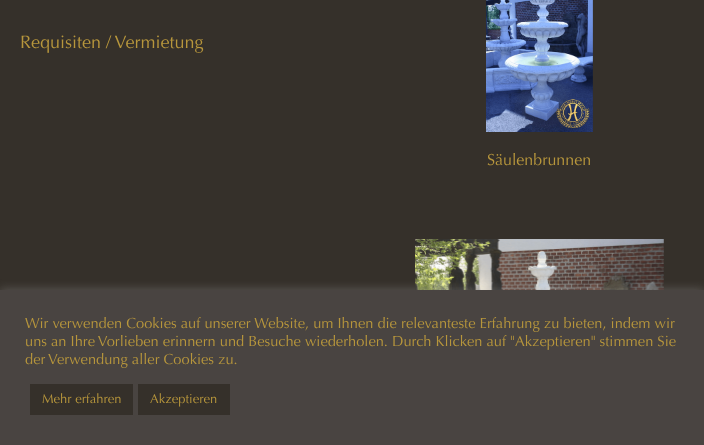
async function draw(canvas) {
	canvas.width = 704;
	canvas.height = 445;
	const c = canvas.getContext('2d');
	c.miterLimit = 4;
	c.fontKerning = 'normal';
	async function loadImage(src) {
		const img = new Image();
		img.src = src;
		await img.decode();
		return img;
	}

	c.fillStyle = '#35302a';
	c.fillRect(0, 0, 704, 445);
	c.font = '500 18px Optima';
	c.fillStyle = '#b7963c';
	c.fillText('Requisiten / Vermietung', 20, 48);
	c.drawImage(await loadImage('img1.png'), 486, 0, 107, 132);
	c.font = '500 16px Optima';
	c.fillText('Säulenbrunnen', 487, 165);
	c.drawImage(await loadImage('img2.png'), 415, 239, 249, 51);
	c.fillStyle = '#acabab4d';
	c.filter = 'blur(5px)';
	c.beginPath();
	c.rect(0, 289, 704, 155);
	c.fill();
	c.filter = 'none';
	c.fillStyle = '#494441';
	c.fillRect(0, 290, 704, 155);
	c.font = '500 14.65px Optima';
	c.fillStyle = '#b7963c';
	for (const [text, x, y] of [
		['Wir verwenden Cookies auf unserer Website, um Ihnen die relevanteste Erfahrung zu bieten, indem wir', 25, 328],
		['uns an Ihre Vorlieben erinnern und Besuche wiederholen. Durch Klicken auf "Akzeptieren" stimmen Sie', 25, 346],
		['der Verwendung aller Cookies zu.', 25, 364],
	]) {
		c.fillText(text, x, y);
	}
	c.fillStyle = '#35302a';
	c.fillRect(30, 384, 103, 31);
	c.font = '500 13px Optima';
	c.fillStyle = '#b7963c';
	c.fillText('Mehr erfahren', 42, 403);
	c.fillStyle = '#35302a';
	c.fillRect(138, 384, 92, 31);
	c.fillStyle = '#b7963c';
	c.fillText('Akzeptieren', 150, 403);
}

draw(document.querySelector('canvas'));
